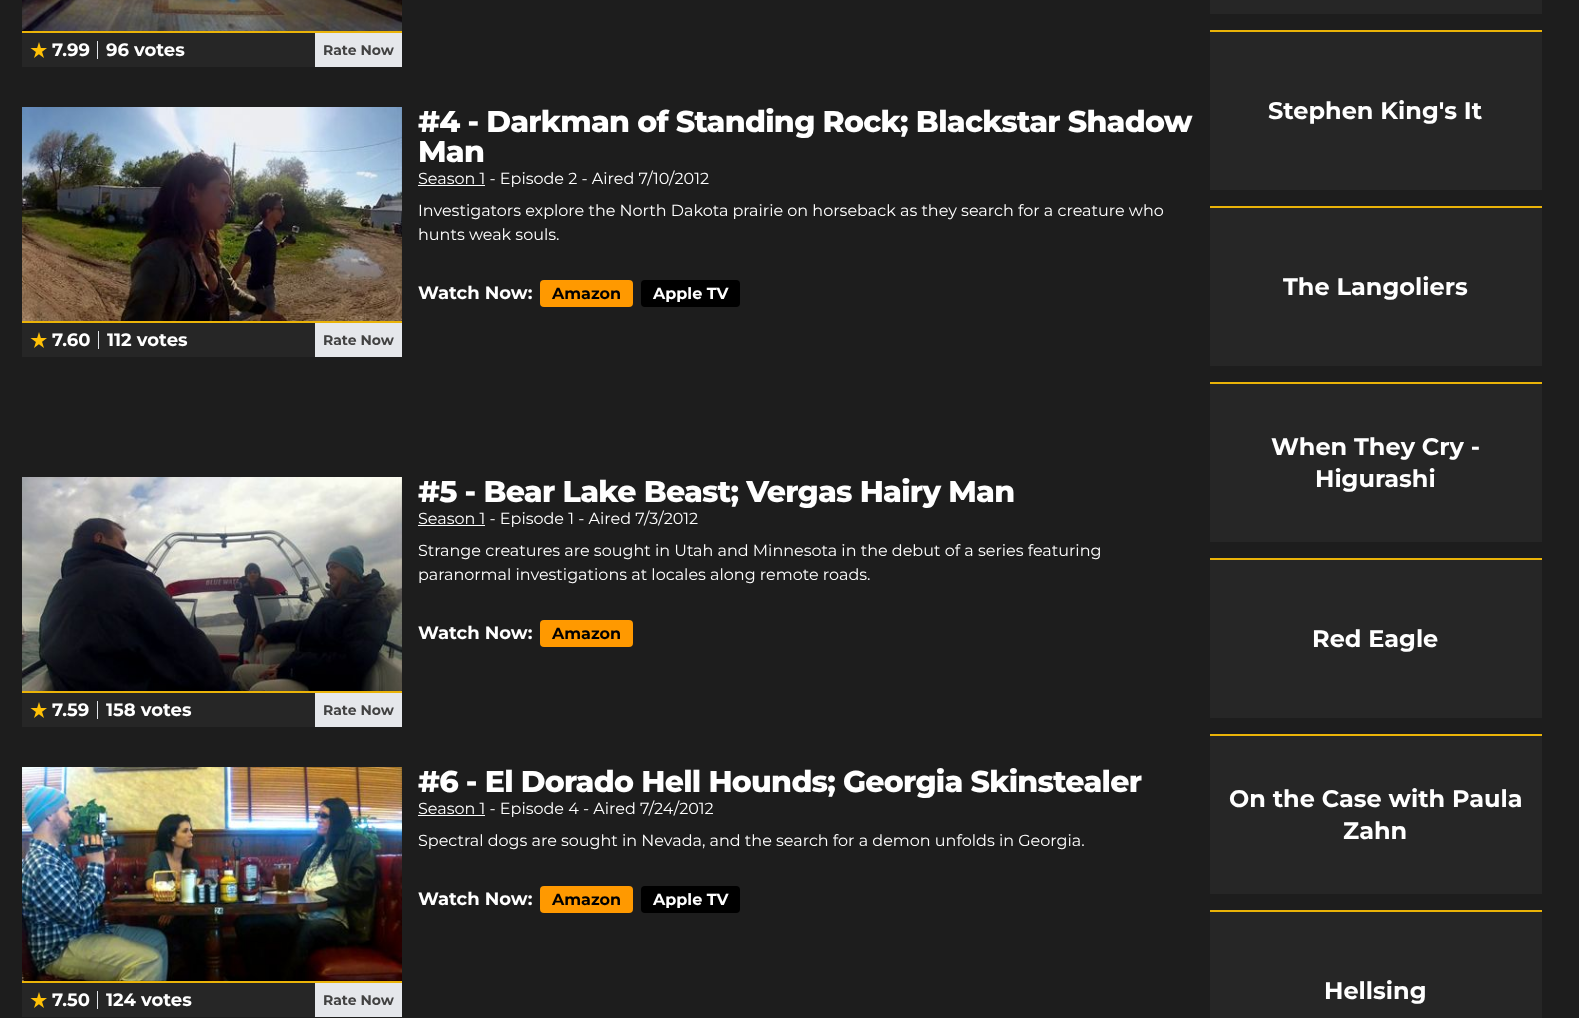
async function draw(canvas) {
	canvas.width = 1579;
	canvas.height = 1018;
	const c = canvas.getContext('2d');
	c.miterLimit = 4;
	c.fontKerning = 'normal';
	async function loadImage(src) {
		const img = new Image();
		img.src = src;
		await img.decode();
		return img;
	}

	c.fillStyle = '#1d1d1d';
	c.fillRect(0, 0, 1579, 1018);
	c.fillStyle = '#eab308';
	c.fillRect(22, 31, 380, 2);
	c.drawImage(await loadImage('img1.png'), 22, 0, 380, 31);
	c.fillStyle = '#262626';
	c.fillRect(22, 33, 293, 34);
	c.fillStyle = '#ffc107';
	c.beginPath();
	c.moveTo(34, 58);
	c.lineTo(39, 42);
	c.lineTo(44, 58);
	c.lineTo(30.5, 48);
	c.lineTo(47, 48);
	c.fill();
	c.fillStyle = '#e5e7eb';
	c.fillRect(97, 41, 1, 18);
	c.font = 'bold 18px Montserrat';
	c.fillStyle = '#fff';
	c.fillText('7.99', 52, 56);
	c.fillText('96 votes', 106, 56);
	c.fillStyle = '#e5e7eb';
	c.fillRect(315, 33, 87, 34);
	c.font = 'bold 14px Montserrat';
	c.fillStyle = '#424242';
	c.fillText('Rate Now', 323, 55);
	c.letterSpacing = '-0.75px';
	c.font = '800 30px Montserrat';
	c.fillStyle = '#fff';
	c.fillText('#4 - Darkman of Standing Rock; Blackstar Shadow', 418, 132);
	c.fillText('Man', 418, 162);
	c.fillRect(418, 185, 67, 1);
	c.letterSpacing = '0px';
	c.font = '16px Montserrat';
	for (const [text, x, y] of [
		['Season 1 - Episode 2 - Aired 7/10/2012', 418, 184],
		['Investigators explore the North Dakota prairie on horseback as they search for a creature who', 418, 216],
		['hunts weak souls.', 418, 240],
	]) {
		c.fillText(text, x, y);
	}
	c.font = 'bold 18px Montserrat';
	c.fillText('Watch Now:', 418, 299);
	c.fillStyle = '#f90';
	c.beginPath();
	c.roundRect(540, 280, 93, 27, 4);
	c.fill();
	c.font = 'bold 16px Montserrat';
	c.fillStyle = '#000';
	c.fillText('Amazon', 552, 299);
	c.beginPath();
	c.roundRect(641, 280, 99, 27, 4);
	c.fill();
	c.fillStyle = '#fff';
	c.fillText('Apple TV', 653, 299);
	c.fillStyle = '#eab308';
	c.fillRect(22, 321, 380, 2);
	c.drawImage(await loadImage('img2.png'), 22, 107, 380, 214);
	c.fillStyle = '#262626';
	c.fillRect(22, 323, 293, 34);
	c.fillStyle = '#ffc107';
	c.beginPath();
	c.moveTo(34, 348);
	c.lineTo(39, 332);
	c.lineTo(44, 348);
	c.lineTo(30.5, 338);
	c.lineTo(47, 338);
	c.fill();
	c.fillStyle = '#e5e7eb';
	c.fillRect(98, 331, 1, 18);
	c.font = 'bold 18px Montserrat';
	c.fillStyle = '#fff';
	c.fillText('7.60', 52, 346);
	c.fillText('112 votes', 107, 346);
	c.fillStyle = '#e5e7eb';
	c.fillRect(315, 323, 87, 34);
	c.font = 'bold 14px Montserrat';
	c.fillStyle = '#424242';
	c.fillText('Rate Now', 323, 345);
	c.letterSpacing = '-0.75px';
	c.font = '800 30px Montserrat';
	c.fillStyle = '#fff';
	c.fillText('#5 - Bear Lake Beast; Vergas Hairy Man', 418, 502);
	c.fillRect(418, 525, 67, 1);
	c.letterSpacing = '0px';
	c.font = '16px Montserrat';
	for (const [text, x, y] of [
		['Season 1 - Episode 1 - Aired 7/3/2012', 418, 524],
		['Strange creatures are sought in Utah and Minnesota in the debut of a series featuring', 418, 556],
		['paranormal investigations at locales along remote roads.', 418, 580],
	]) {
		c.fillText(text, x, y);
	}
	c.font = 'bold 18px Montserrat';
	c.fillText('Watch Now:', 418, 639);
	c.fillStyle = '#f90';
	c.beginPath();
	c.roundRect(540, 620, 93, 27, 4);
	c.fill();
	c.font = 'bold 16px Montserrat';
	c.fillStyle = '#000';
	c.fillText('Amazon', 552, 639);
	c.fillStyle = '#eab308';
	c.fillRect(22, 691, 380, 2);
	c.drawImage(await loadImage('img3.png'), 22, 477, 380, 214);
	c.fillStyle = '#262626';
	c.fillRect(22, 693, 293, 34);
	c.fillStyle = '#ffc107';
	c.beginPath();
	c.moveTo(34, 718);
	c.lineTo(39, 702);
	c.lineTo(44, 718);
	c.lineTo(30.5, 708);
	c.lineTo(47, 708);
	c.fill();
	c.fillStyle = '#e5e7eb';
	c.fillRect(97, 701, 1, 18);
	c.font = 'bold 18px Montserrat';
	c.fillStyle = '#fff';
	c.fillText('7.59', 52, 716);
	c.fillText('158 votes', 106, 716);
	c.fillStyle = '#e5e7eb';
	c.fillRect(315, 693, 87, 34);
	c.font = 'bold 14px Montserrat';
	c.fillStyle = '#424242';
	c.fillText('Rate Now', 323, 715);
	c.letterSpacing = '-0.75px';
	c.font = '800 30px Montserrat';
	c.fillStyle = '#fff';
	c.fillText('#6 - El Dorado Hell Hounds; Georgia Skinstealer', 418, 792);
	c.fillRect(418, 815, 67, 1);
	c.letterSpacing = '0px';
	c.font = '16px Montserrat';
	c.fillText('Season 1 - Episode 4 - Aired 7/24/2012', 418, 814);
	c.fillText('Spectral dogs are sought in Nevada, and the search for a demon unfolds in Georgia.', 418, 846);
	c.font = 'bold 18px Montserrat';
	c.fillText('Watch Now:', 418, 905);
	c.fillStyle = '#f90';
	c.beginPath();
	c.roundRect(540, 886, 93, 27, 4);
	c.fill();
	c.font = 'bold 16px Montserrat';
	c.fillStyle = '#000';
	c.fillText('Amazon', 552, 905);
	c.beginPath();
	c.roundRect(641, 886, 99, 27, 4);
	c.fill();
	c.fillStyle = '#fff';
	c.fillText('Apple TV', 653, 905);
	c.fillStyle = '#eab308';
	c.fillRect(22, 981, 380, 2);
	c.drawImage(await loadImage('img4.png'), 22, 767, 380, 214);
	c.fillStyle = '#262626';
	c.fillRect(22, 983, 293, 34);
	c.fillStyle = '#ffc107';
	c.beginPath();
	c.moveTo(34, 1008);
	c.lineTo(39, 992);
	c.lineTo(44, 1008);
	c.lineTo(30.5, 998);
	c.lineTo(47, 998);
	c.fill();
	c.fillStyle = '#e5e7eb';
	c.fillRect(97, 991, 1, 18);
	c.font = 'bold 18px Montserrat';
	c.fillStyle = '#fff';
	c.fillText('7.50', 52, 1006);
	c.fillText('124 votes', 106, 1006);
	c.fillStyle = '#e5e7eb';
	c.fillRect(315, 983, 87, 34);
	c.font = 'bold 14px Montserrat';
	c.fillStyle = '#424242';
	c.fillText('Rate Now', 323, 1005);
	for (const [x, y, w, h, color] of [
		[1210, 0, 332, 14, '#262626'],
		[1210, 32, 332, 158, '#262626'],
		[1210, 30, 332, 2, '#eab308'],
	]) {
		c.fillStyle = color;
		c.fillRect(x, y, w, h);
	}
	c.font = 'bold 24px Montserrat';
	c.fillStyle = '#fff';
	c.fillText('Stephen King\'s It', 1268, 119);
	c.fillStyle = '#262626';
	c.fillRect(1210, 208, 332, 158);
	c.fillStyle = '#eab308';
	c.fillRect(1210, 206, 332, 2);
	c.fillStyle = '#fff';
	c.fillText('The Langoliers', 1283, 295);
	c.fillStyle = '#262626';
	c.fillRect(1210, 384, 332, 158);
	c.fillStyle = '#eab308';
	c.fillRect(1210, 382, 332, 2);
	c.fillStyle = '#fff';
	c.fillText('When They Cry -', 1271, 455);
	c.fillText('Higurashi', 1315, 487);
	c.fillStyle = '#262626';
	c.fillRect(1210, 560, 332, 158);
	c.fillStyle = '#eab308';
	c.fillRect(1210, 558, 332, 2);
	c.fillStyle = '#fff';
	c.fillText('Red Eagle', 1312, 647);
	c.fillStyle = '#262626';
	c.fillRect(1210, 736, 332, 158);
	c.fillStyle = '#eab308';
	c.fillRect(1210, 734, 332, 2);
	c.fillStyle = '#fff';
	c.fillText('On the Case with Paula', 1229, 807);
	c.fillText('Zahn', 1343, 839);
	c.fillStyle = '#262626';
	c.fillRect(1210, 912, 332, 106);
	c.fillStyle = '#eab308';
	c.fillRect(1210, 910, 332, 2);
	c.fillStyle = '#fff';
	c.fillText('Hellsing', 1324, 999);
}

draw(document.querySelector('canvas'));
